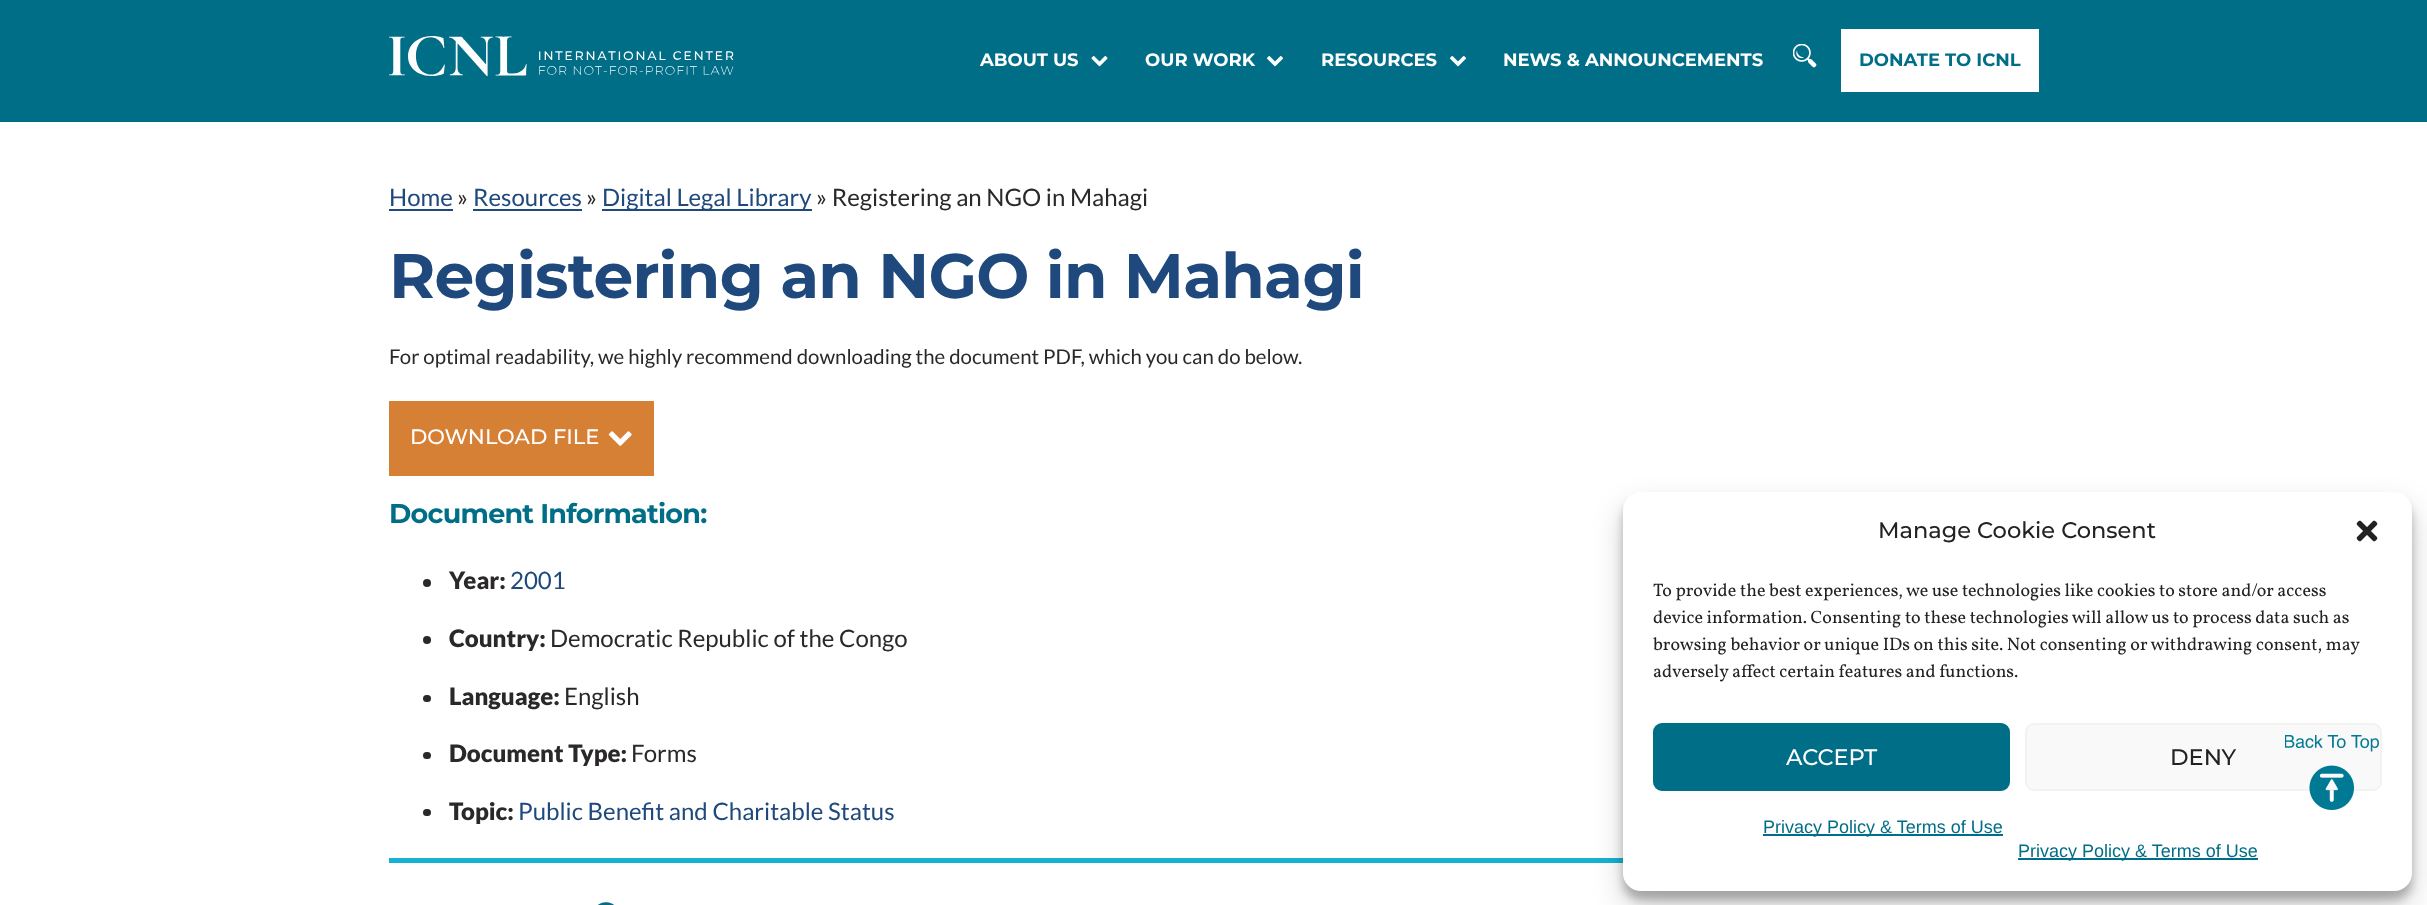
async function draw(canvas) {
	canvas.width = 2427;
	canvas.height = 905;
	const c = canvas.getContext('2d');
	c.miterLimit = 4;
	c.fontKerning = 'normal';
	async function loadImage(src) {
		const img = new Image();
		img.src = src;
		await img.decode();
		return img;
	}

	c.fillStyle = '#fff';
	c.fillRect(0, 0, 2427, 905);
	c.fillStyle = '#016e87';
	c.fillRect(0, 0, 2427, 122);
	c.drawImage(await loadImage('img1.png'), 389, 36, 345, 41);
	c.font = 'bold 18px Montserrat';
	c.fillStyle = '#fff';
	c.fillText('ABOUT US', 980, 66);
	c.drawImage(await loadImage('img2.png'), 1091, 56, 17, 11);
	c.fillText('OUR WORK', 1145, 66);
	c.drawImage(await loadImage('img3.png'), 1266, 56, 18, 11);
	c.fillText('RESOURCES', 1321, 66);
	c.drawImage(await loadImage('img3.png'), 1449, 56, 18, 11);
	c.fillText('NEWS & ANNOUNCEMENTS', 1503, 66);
	c.drawImage(await loadImage('img4.png'), 1793, 44, 24, 24);
	c.fillRect(1841, 29, 198, 63);
	c.fillStyle = '#016e87';
	c.fillText('DONATE TO ICNL', 1859, 66);
	c.font = '24px Lato';
	c.fillStyle = '#1f497d';
	c.fillText('Home', 389, 206);
	c.fillRect(389, 209, 64, 2);
	c.fillStyle = '#2b2828';
	c.fillText('»', 457, 206);
	c.fillStyle = '#1f497d';
	c.fillText('Resources', 473, 206);
	c.fillRect(473, 209, 109, 2);
	c.fillStyle = '#2b2828';
	c.fillText('»', 586, 206);
	c.fillStyle = '#1f497d';
	c.fillRect(602, 209, 210, 2);
	c.fillText('Digital Legal Library', 602, 206);
	c.fillStyle = '#2b2828';
	c.fillText('» Registering an NGO in Mahagi', 816, 206);
	c.letterSpacing = '-0.75px';
	c.font = 'bold 63px Montserrat';
	c.fillStyle = '#1f497d';
	c.fillText('Registering an NGO in Mahagi', 389, 298);
	c.letterSpacing = '0px';
	c.font = '20.4px Lato';
	c.fillStyle = '#2b2828';
	c.fillText('For optimal readability, we highly recommend downloading the document PDF, which you can do below.', 389, 364);
	c.fillStyle = '#d68035';
	c.fillRect(389, 401, 265, 75);
	c.font = '500 21px Montserrat';
	c.fillStyle = '#fff';
	c.fillText('DOWNLOAD FILE', 410, 444);
	c.drawImage(await loadImage('img5.png'), 608, 431, 24, 15);
	c.letterSpacing = '-0.75px';
	c.font = 'bold 27px Montserrat';
	c.fillStyle = '#016e87';
	c.fillText('Document Information:', 389, 523);
	c.fillStyle = '#2b2828';
	c.beginPath();
	c.arc(427, 583, 4, 0, 2 * Math.PI);
	c.fill();
	c.letterSpacing = '0px';
	c.font = '900 24px Lato';
	c.fillText('Year:', 449, 589);
	c.font = '24px Lato';
	c.fillStyle = '#1f497d';
	c.fillText('2001', 510, 589);
	c.fillStyle = '#2b2828';
	c.beginPath();
	c.arc(427, 640, 4, 0, 2 * Math.PI);
	c.fill();
	c.font = '900 24px Lato';
	c.fillText('Country:', 449, 647);
	c.font = '24px Lato';
	c.fillText('Democratic Republic of the Congo', 550, 647);
	c.beginPath();
	c.roundRect(423, 695, 8, 7, 3.5);
	c.fill();
	c.font = '900 24px Lato';
	c.fillText('Language:', 449, 705);
	c.font = '24px Lato';
	c.fillText('English', 564, 705);
	c.beginPath();
	c.roundRect(423, 752, 8, 7, 3.5);
	c.fill();
	c.font = '900 24px Lato';
	c.fillText('Document Type:', 449, 762);
	c.font = '24px Lato';
	c.fillText('Forms', 631, 762);
	c.beginPath();
	c.roundRect(423, 809, 8, 7, 3.5);
	c.fill();
	c.font = '900 24px Lato';
	c.fillText('Topic:', 449, 820);
	c.font = '24px Lato';
	c.fillStyle = '#1f497d';
	c.fillText('Public Benefit and Charitable Status', 518, 820);
	c.fillStyle = '#17b1d3';
	c.fillRect(389, 858, 1234, 5);
	c.drawImage(await loadImage('img6.png'), 598, 902, 16, 3);
	c.fillStyle = '#0000003b';
	c.filter = 'blur(4.5px)';
	c.beginPath();
	c.roundRect(1623, 501, 789, 399, 18);
	c.fill();
	c.filter = 'none';
	c.fillStyle = '#00000030';
	c.filter = 'blur(15px)';
	c.beginPath();
	c.roundRect(1623, 507, 789, 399, 18);
	c.fill();
	c.filter = 'none';
	c.fillStyle = '#fff';
	c.beginPath();
	c.roundRect(1623, 492, 789, 399, 18);
	c.fill();
	c.font = '500 22.5px Montserrat';
	c.fillStyle = '#222';
	c.fillText('Manage Cookie Consent', 1878, 538);
	c.drawImage(await loadImage('img7.png'), 2356, 520, 22, 22);
	c.font = '18px Vollkorn';
	for (const [text, x, y] of [
		['To provide the best experiences, we use technologies like cookies to store and/or access', 1653, 596],
		['device information. Consenting to these technologies will allow us to process data such as', 1653, 623],
		['browsing behavior or unique IDs on this site. Not consenting or withdrawing consent, may', 1653, 650],
		['adversely affect certain features and functions.', 1653, 677],
	]) {
		c.fillText(text, x, y);
	}
	c.fillStyle = '#016e87';
	c.beginPath();
	c.roundRect(1654, 724, 355, 66, 8);
	c.fill();
	c.strokeStyle = '#016e87';
	c.lineWidth = 2;
	c.stroke();
	c.font = '500 22.5px Montserrat';
	c.fillStyle = '#fff';
	c.fillText('ACCEPT', 1786, 765);
	c.fillStyle = '#f9f9f9';
	c.beginPath();
	c.roundRect(2026, 724, 355, 66, 8);
	c.fill();
	c.strokeStyle = '#f2f2f2';
	c.stroke();
	c.fillStyle = '#222';
	c.fillText('DENY', 2170, 765);
	c.fillStyle = '#016e87';
	c.fillRect(1763, 834, 240, 2);
	c.font = '18px Liberation Sans';
	c.fillText('Privacy Policy & Terms of Use', 1763, 833);
	c.fillRect(2018, 858, 240, 2);
	c.fillText('Privacy Policy & Terms of Use', 2018, 857);
	c.drawImage(await loadImage('img8.png'), 2285, 735, 94, 75);
}

draw(document.querySelector('canvas'));
